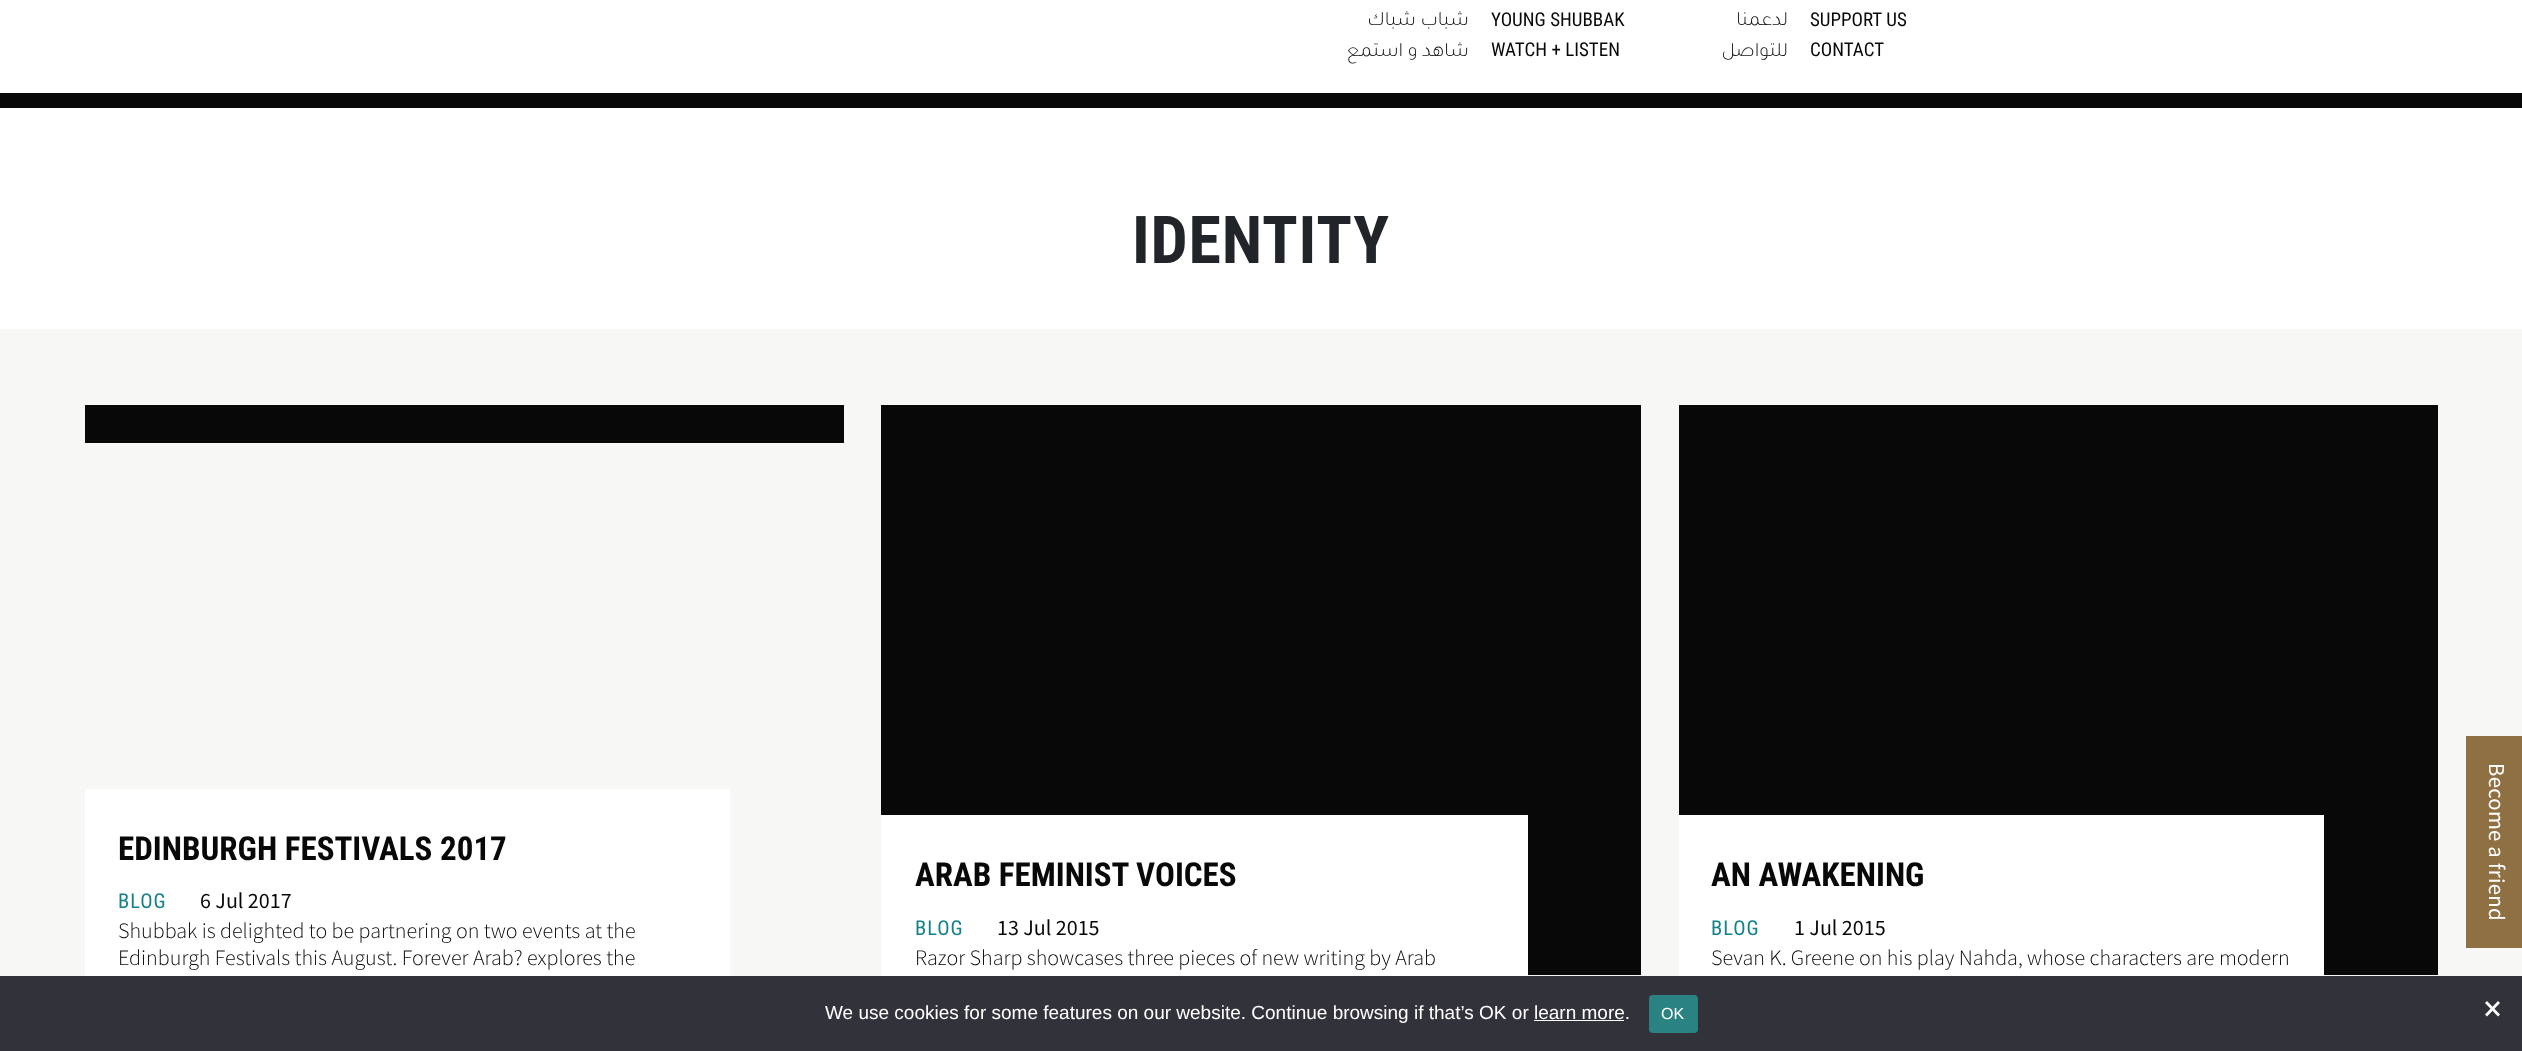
async function draw(canvas) {
	canvas.width = 2522;
	canvas.height = 1051;
	const c = canvas.getContext('2d');
	c.miterLimit = 4;
	c.fontKerning = 'normal';

	c.fillStyle = '#fff';
	c.fillRect(0, 0, 2522, 1051);
	c.direction = 'rtl';
	c.font = '300 20.25px Tajawal';
	c.fillStyle = '#111';
	c.fillText('شباب شباك', 1469, 25);
	c.fillText('شاهد و استمع', 1469, 56);
	c.direction = 'ltr';
	c.font = '19px Roboto Condensed';
	c.fillStyle = '#080808';
	c.fillText('YOUNG SHUBBAK', 1491, 26);
	c.fillText('WATCH + LISTEN', 1491, 56);
	c.direction = 'rtl';
	c.font = '300 20.25px Tajawal';
	c.fillStyle = '#111';
	c.fillText('لدعمنا', 1788, 25);
	c.fillText('للتواصل', 1788, 56);
	c.direction = 'ltr';
	c.font = '19px Roboto Condensed';
	c.fillStyle = '#080808';
	c.fillText('SUPPORT US', 1810, 26);
	c.fillText('CONTACT', 1810, 56);
	c.fillRect(0, 93, 2522, 15);
	c.letterSpacing = '0.75px';
	c.font = 'bold 66px Roboto Condensed';
	c.fillStyle = '#212529';
	c.fillText('IDENTITY', 1132, 263);
	for (const [x, y, w, h, color] of [
		[0, 329, 2522, 647, '#f7f7f6'],
		[85, 405, 759, 38, '#080808'],
		[85, 789, 645, 187, '#fff'],
	]) {
		c.fillStyle = color;
		c.fillRect(x, y, w, h);
	}
	c.letterSpacing = '0px';
	c.font = 'bold 33px Roboto Condensed';
	c.fillStyle = '#080808';
	c.fillText('EDINBURGH FESTIVALS 2017', 118, 860);
	c.letterSpacing = '1px';
	c.font = '20.5px Roboto Condensed';
	c.fillStyle = '#158189';
	c.fillText('BLOG', 118, 908);
	c.letterSpacing = '0px';
	c.font = '22px Source Sans Pro';
	c.fillStyle = '#080808';
	c.fillText('6 Jul 2017', 200, 908);
	c.font = '300 22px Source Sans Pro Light';
	c.fillText('Shubbak is delighted to be partnering on two events at the', 118, 938);
	c.fillText('Edinburgh Festivals this August. Forever Arab? explores the', 118, 965);
	c.fillRect(881, 405, 760, 570);
	c.fillStyle = '#fff';
	c.fillRect(881, 815, 647, 161);
	c.font = 'bold 33px Roboto Condensed';
	c.fillStyle = '#080808';
	c.fillText('ARAB FEMINIST VOICES', 915, 886);
	c.letterSpacing = '1px';
	c.font = '20.5px Roboto Condensed';
	c.fillStyle = '#158189';
	c.fillText('BLOG', 915, 935);
	c.letterSpacing = '0px';
	c.font = '22px Source Sans Pro';
	c.fillStyle = '#080808';
	c.fillText('13 Jul 2015', 997, 935);
	c.font = '300 22px Source Sans Pro Light';
	c.fillText('Razor Sharp showcases three pieces of new writing by Arab', 915, 965);
	c.fillRect(1679, 405, 759, 570);
	c.fillStyle = '#fff';
	c.fillRect(1679, 815, 645, 161);
	c.font = 'bold 33px Roboto Condensed';
	c.fillStyle = '#080808';
	c.fillText('AN AWAKENING', 1711, 886);
	c.letterSpacing = '1px';
	c.font = '20.5px Roboto Condensed';
	c.fillStyle = '#158189';
	c.fillText('BLOG', 1711, 935);
	c.letterSpacing = '0px';
	c.font = '22px Source Sans Pro';
	c.fillStyle = '#080808';
	c.fillText('1 Jul 2015', 1794, 935);
	c.font = '300 22px Source Sans Pro Light';
	c.fillText('Sevan K. Greene on his play Nahda, whose characters are modern', 1711, 965);
	c.fillStyle = '#8f7042';
	c.fillRect(2466, 736, 56, 212);
	c.letterSpacing = '0.25px';
	c.font = '22.75px Source Sans Pro';
	c.fillStyle = '#fff';
	c.save();
	c.translate(2489, 763);
	c.rotate(90 * Math.PI / 180);
	c.fillText('Become a friend', 0, 0);
	c.restore();
	c.fillStyle = '#32323a';
	c.fillRect(0, 976, 2522, 75);
	c.letterSpacing = '0px';
	c.font = '19px Liberation Sans';
	c.fillStyle = '#fff';
	c.fillText('We use cookies for some features on our website. Continue browsing if that’s OK or learn more.', 825, 1019);
	c.fillRect(1534, 1020, 90, 1);
	c.fillStyle = '#2b8282';
	c.beginPath();
	c.roundRect(1649, 995, 49, 38, 4);
	c.fill();
	c.font = '16px Liberation Sans';
	c.fillStyle = '#fff';
	c.fillText('OK', 1661, 1019);
	c.beginPath();
	c.moveTo(2498, 1001);
	c.lineTo(2500, 1003);
	c.lineTo(2487, 1016.5);
	c.lineTo(2485, 1014.5);
	c.closePath();
	c.fill();
	c.beginPath();
	c.moveTo(2485, 1003);
	c.lineTo(2487, 1001);
	c.lineTo(2500, 1014.5);
	c.lineTo(2498, 1016.5);
	c.closePath();
	c.fill();
}

draw(document.querySelector('canvas'));
